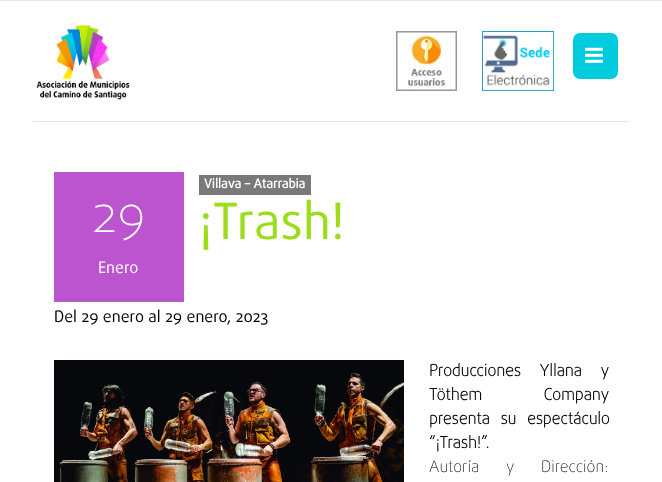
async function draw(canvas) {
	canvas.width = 662;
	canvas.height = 482;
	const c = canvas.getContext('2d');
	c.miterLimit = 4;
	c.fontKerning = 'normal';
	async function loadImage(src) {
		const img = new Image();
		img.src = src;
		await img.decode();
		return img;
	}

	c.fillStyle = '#fff';
	c.fillRect(0, 0, 662, 482);
	c.fillStyle = '#e5e5e5';
	c.fillRect(0, 0, 662, 1);
	c.fillRect(33, 121, 596, 1);
	c.drawImage(await loadImage('img1.png'), 36, 25, 94, 75);
	c.drawImage(await loadImage('img2.png'), 396, 31, 61, 60);
	c.drawImage(await loadImage('img3.png'), 482, 31, 72, 60);
	c.fillStyle = '#0cd';
	c.beginPath();
	c.roundRect(573, 33, 45, 46, 7);
	c.fill();
	c.drawImage(await loadImage('img4.png'), 585, 47, 18, 16);
	c.fillStyle = '#797979';
	c.fillRect(199, 175, 112, 20);
	c.font = 'bold 12.75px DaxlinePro';
	c.fillStyle = '#fff';
	c.fillText('Villava – Atarrabia', 204, 188);
	c.fillStyle = '#bc54cf';
	c.fillRect(54, 172, 130, 130);
	c.font = '100 50px DaxlinePro';
	c.fillStyle = '#fff';
	c.fillText('29', 92, 232);
	c.font = '16px DaxlinePro';
	c.fillText('Enero', 98, 273);
	c.font = '50px DaxlinePro';
	c.fillStyle = '#9bdc1b';
	c.fillText('¡Trash!', 199, 239);
	c.font = '16px DaxlinePro';
	c.fillStyle = '#000';
	c.fillText('Del 29 enero al 29 enero, 2023', 54, 322);
	c.drawImage(await loadImage('img5.png'), 54, 360, 350, 122);
	c.wordSpacing = '14px';
	c.font = 'bold 16px "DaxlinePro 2"';
	c.fillText('Producciones Yllana y', 429, 376);
	c.wordSpacing = '57px';
	c.fillText('Töthem Company', 429, 400);
	c.wordSpacing = '6px';
	c.fillText('presenta su espectáculo', 429, 424);
	c.wordSpacing = '0px';
	c.fillText('“¡Trash!”.', 429, 448);
	c.wordSpacing = '22px';
	c.font = '100 16px DaxlinePro';
	c.fillText('Autoría y Dirección:', 429, 472);
}

draw(document.querySelector('canvas'));
